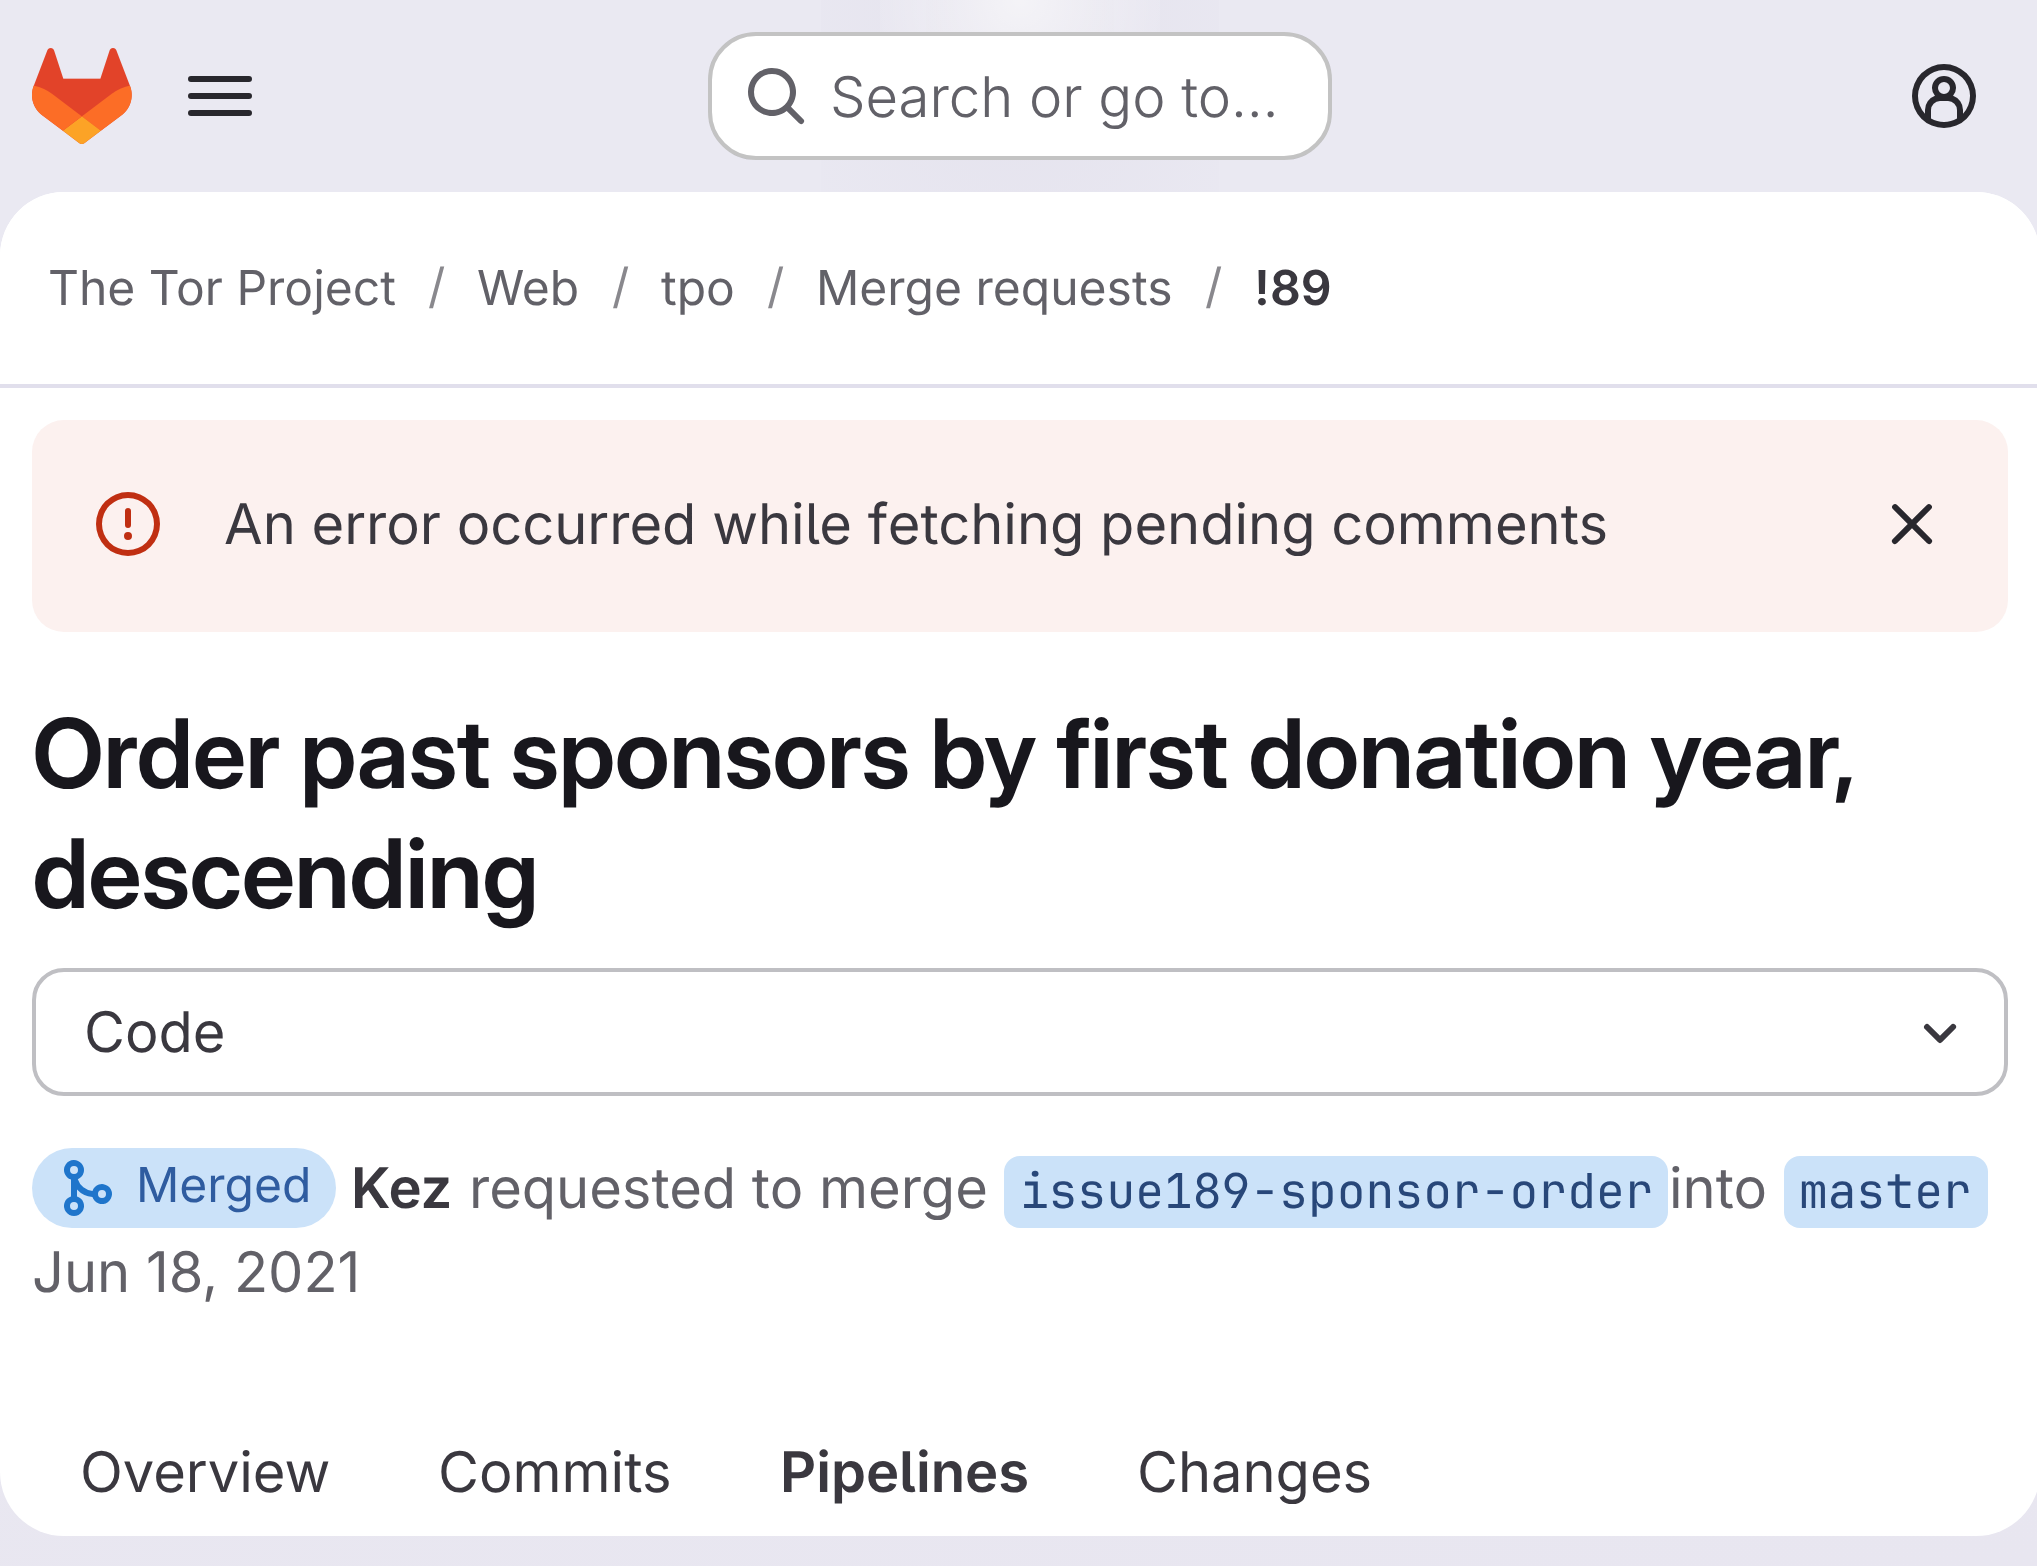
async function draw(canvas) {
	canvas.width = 2037;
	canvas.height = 1566;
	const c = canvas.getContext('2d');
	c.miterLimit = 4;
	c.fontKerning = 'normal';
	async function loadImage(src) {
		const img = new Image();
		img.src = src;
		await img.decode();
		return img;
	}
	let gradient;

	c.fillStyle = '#fff';
	c.fillRect(0, 0, 2037, 1566);
	gradient = c.createLinearGradient(1185, 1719, 855, -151);
	gradient.addColorStop(0, '#e8e6f0');
	gradient.addColorStop(0.7, '#eae9f2');
	c.fillStyle = gradient;
	c.fillRect(0, 0, 2037, 1566);
	gradient = c.createRadialGradient(1020, 0, 0, 1020, 0, 1020);
	gradient.addColorStop(0, '#e4e2ed');
	gradient.addColorStop(0.27, '#e4e2ed00');
	c.fillStyle = gradient;
	c.beginPath();
	c.rect(821, 0, 398, 192);
	c.save();
	c.clip();
	c.scale(1, 1568 / 1020);
	c.fillRect(0, 0, 2037, 1019);
	c.restore();
	gradient = c.createRadialGradient(1020, 0, 0, 1020, 0, 1020);
	gradient.addColorStop(0, '#e4e2ec');
	gradient.addColorStop(0.2, '#e4e2ec00');
	c.fillStyle = gradient;
	c.beginPath();
	c.rect(926, 0, 188, 132);
	c.save();
	c.clip();
	c.scale(1, 1568 / 1020);
	c.fillRect(0, 0, 2037, 1019);
	c.restore();
	gradient = c.createRadialGradient(1020, 0, 0, 1020, 0, 1871);
	gradient.addColorStop(0, '#ffffff99');
	gradient.addColorStop(0.09, '#ffffff00');
	c.fillStyle = gradient;
	c.fillRect(880, 0, 280, 143);
	c.drawImage(await loadImage('img1.png'), 32, 48, 100, 96);
	c.drawImage(await loadImage('img2.png'), 188, 76, 64, 40);
	c.fillStyle = '#fff';
	c.beginPath();
	c.roundRect(708, 32, 624, 128, 48);
	c.fill();
	c.beginPath();
	c.roundRect(710, 34, 620, 124, 46);
	c.strokeStyle = '#0505063d';
	c.lineWidth = 4;
	c.stroke();
	c.drawImage(await loadImage('img3.png'), 748, 68, 57, 57);
	c.font = '300 56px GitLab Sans';
	c.fillStyle = '#626168';
	c.fillText('Search or go to…', 830, 117);
	c.drawImage(await loadImage('img4.png'), 1912, 64, 64, 64);
	c.fillStyle = '#fff';
	c.beginPath();
	c.roundRect(0, 192, 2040, 1344, 64);
	c.fill();
	c.beginPath();
	c.moveTo(64, 192);
	c.lineTo(1976, 192);
	c.bezierCurveTo(2011.5, 192, 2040, 220.5, 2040, 256);
	c.lineTo(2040, 388);
	c.lineTo(0, 388);
	c.lineTo(0, 256);
	c.bezierCurveTo(0, 220.5, 28.5, 192, 64, 192);
	c.closePath();
	c.fill();
	c.fillStyle = '#e1dfec';
	c.fillRect(0, 384, 2037, 4);
	c.font = '48px GitLab Sans';
	c.fillStyle = '#626168';
	c.fillText('The Tor Project', 48, 305);
	c.fillStyle = '#89888d';
	c.fillText('/', 428, 303);
	c.fillStyle = '#626168';
	c.fillText('Web', 477, 305);
	c.fillStyle = '#89888d';
	c.fillText('/', 612, 303);
	c.fillStyle = '#626168';
	c.fillText('tpo', 661, 305);
	c.fillStyle = '#89888d';
	c.fillText('/', 767, 303);
	c.fillStyle = '#626168';
	c.fillText('Merge requests', 816, 305);
	c.fillStyle = '#89888d';
	c.fillText('/', 1205, 303);
	c.font = '600 48px "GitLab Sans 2"';
	c.fillStyle = '#3a383f';
	c.fillText('!89', 1254, 305);
	c.fillStyle = '#fcf1ef';
	c.beginPath();
	c.roundRect(32, 420, 1976, 212, 32);
	c.fill();
	c.drawImage(await loadImage('img5.png'), 96, 492, 64, 64);
	c.font = '56px GitLab Sans';
	c.fillStyle = '#3a383f';
	c.fillText('An error occurred while fetching pending comments', 224, 544);
	c.drawImage(await loadImage('img6.png'), 1891, 504, 42, 41);
	c.letterSpacing = '-0.95px';
	c.wordSpacing = '-0.5px';
	c.font = '600 96px GitLab Sans';
	c.fillStyle = '#18171d';
	c.fillText('Order past sponsors by first donation year,', 32, 788);
	c.wordSpacing = '0px';
	c.fillText('descending', 32, 908);
	c.beginPath();
	c.roundRect(34, 970, 1972, 124, 30);
	c.strokeStyle = '#bfbfc3';
	c.stroke();
	c.letterSpacing = '0px';
	c.font = '56px GitLab Sans';
	c.fillStyle = '#3a383f';
	c.fillText('Code', 84, 1052);
	c.drawImage(await loadImage('img7.png'), 1923, 1023, 34, 21);
	c.fillStyle = '#cbe2f9';
	c.beginPath();
	c.roundRect(32, 1148, 304, 80, 40);
	c.fill();
	c.drawImage(await loadImage('img8.png'), 64, 1160, 48, 56);
	c.font = '48px GitLab Sans';
	c.fillStyle = '#2f5ca0';
	c.fillText('Merged', 136, 1202);
	c.font = '600 56px "GitLab Sans 2"';
	c.fillStyle = '#3a383f';
	c.fillText('Kez', 351, 1208);
	c.font = '56px GitLab Sans';
	c.fillStyle = '#626168';
	c.fillText('requested to merge', 469, 1208);
	c.fillStyle = '#cbe2f9';
	c.beginPath();
	c.roundRect(1004, 1156, 664, 72, 16);
	c.fill();
	c.font = '48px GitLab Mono';
	c.fillStyle = '#284779';
	c.fillText('issue189-sponsor-order', 1020, 1208);
	c.font = '56px GitLab Sans';
	c.fillStyle = '#626168';
	c.fillText('into', 1669, 1208);
	c.fillStyle = '#cbe2f9';
	c.beginPath();
	c.roundRect(1784, 1156, 204, 72, 16);
	c.fill();
	c.font = '48px GitLab Mono';
	c.fillStyle = '#284779';
	c.fillText('master', 1799, 1208);
	c.font = '56px GitLab Sans';
	c.fillStyle = '#626168';
	c.fillText('Jun 18, 2021', 32, 1292);
	c.fillStyle = '#3a383f';
	c.fillText('Overview', 80, 1492);
	c.fillText('Commits', 438, 1492);
	c.font = '600 56px "GitLab Sans 2"';
	c.fillText('Pipelines', 780, 1492);
	c.font = '56px GitLab Sans';
	c.fillText('Changes', 1137, 1492);
}

draw(document.querySelector('canvas'));
